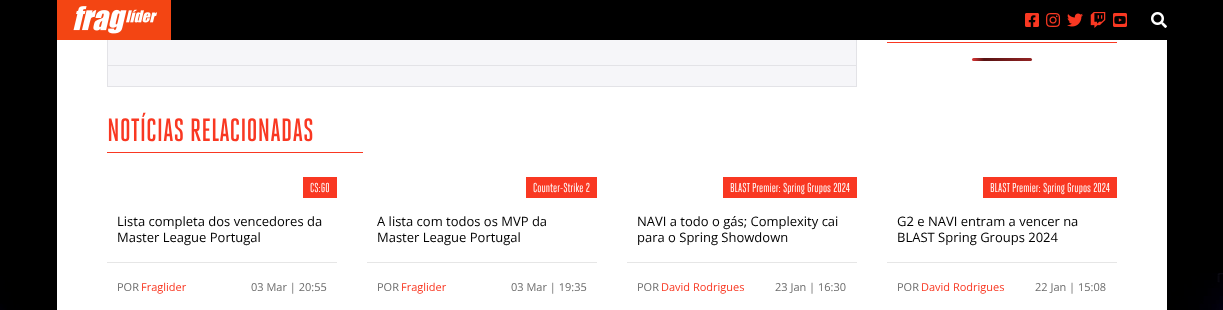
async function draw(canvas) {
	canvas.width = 1223;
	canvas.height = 310;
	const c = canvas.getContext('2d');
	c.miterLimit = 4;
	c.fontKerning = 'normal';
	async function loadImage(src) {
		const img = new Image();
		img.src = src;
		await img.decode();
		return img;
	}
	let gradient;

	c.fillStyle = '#000';
	c.fillRect(0, 0, 1223, 310);
	c.drawImage(await loadImage('img1.png'), 0, 273, 1223, 37);
	c.fillStyle = '#fff';
	c.fillRect(57, 40, 1110, 270);
	c.fillStyle = '#f6f6f9';
	c.fillRect(108, 40, 748, 46);
	c.strokeStyle = '#e3e3e7';
	c.strokeRect(107.5, -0.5, 749, 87);
	c.fillStyle = '#000';
	c.fillRect(107, 0, 750, 40);
	c.drawImage(await loadImage('img2.png'), 57, 0, 114, 40);
	c.drawImage(await loadImage('img3.png'), 1025, 13, 14, 14);
	c.drawImage(await loadImage('img4.png'), 1046, 13, 15, 14);
	c.drawImage(await loadImage('img5.png'), 1067, 13, 16, 14);
	c.drawImage(await loadImage('img6.png'), 1090, 12, 16, 16);
	c.drawImage(await loadImage('img7.png'), 1113, 13, 14, 14);
	c.drawImage(await loadImage('img8.png'), 1151, 12, 16, 16);
	c.fillStyle = '#e3e3e7';
	c.fillRect(108, 65, 748, 1);
	c.fillStyle = '#f93822';
	c.fillRect(887, 42, 230, 1);
	gradient = c.createLinearGradient(972, 60, 1092, 59);
	gradient.addColorStop(0, '#dd3737');
	gradient.addColorStop(0.1, '#571313');
	gradient.addColorStop(1, '#dd3737');
	c.fillStyle = gradient;
	c.beginPath();
	c.roundRect(972, 58, 60, 3, 1.5);
	c.fill();
	c.fillStyle = '#f93822';
	c.fillRect(107, 152, 256, 1);
	c.font = '500 32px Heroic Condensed';
	c.fillText('NOTÍCIAS RELACIONADAS', 107, 141);
	c.fillRect(303, 177, 34, 21);
	c.font = '13px Heroic Condensed';
	c.fillStyle = '#fff';
	c.fillText('CS:GO', 310, 192);
	c.font = '13px Open Sans';
	c.fillStyle = '#000';
	c.fillText('Lista completa dos vencedores da', 117, 226);
	c.fillText('Master League Portugal', 117, 242);
	c.fillStyle = '#e6e6e6';
	c.fillRect(107, 262, 230, 1);
	c.font = '11px Open Sans';
	c.fillStyle = '#6b6b6b';
	c.fillText('POR', 117, 291);
	c.fillStyle = '#f93822';
	c.fillText('Fraglider', 141, 291);
	c.fillStyle = '#6b6b6b';
	c.fillText('03 Mar | 20:55', 251, 291);
	c.fillStyle = '#f93822';
	c.fillRect(526, 177, 71, 21);
	c.font = '13px Heroic Condensed';
	c.fillStyle = '#fff';
	c.fillText('Counter-Strike 2', 533, 192);
	c.font = '13px Open Sans';
	c.fillStyle = '#000';
	c.fillText('A lista com todos os MVP da', 377, 226);
	c.fillText('Master League Portugal', 377, 242);
	c.fillStyle = '#e6e6e6';
	c.fillRect(367, 262, 230, 1);
	c.font = '11px Open Sans';
	c.fillStyle = '#6b6b6b';
	c.fillText('POR', 377, 291);
	c.fillStyle = '#f93822';
	c.fillText('Fraglider', 401, 291);
	c.fillStyle = '#6b6b6b';
	c.fillText('03 Mar | 19:35', 511, 291);
	c.fillStyle = '#f93822';
	c.fillRect(723, 177, 134, 21);
	c.font = '13px Heroic Condensed';
	c.fillStyle = '#fff';
	c.fillText('BLAST Premier: Spring Grupos 2024', 730, 192);
	c.font = '13px Open Sans';
	c.fillStyle = '#000';
	c.fillText('NAVI a todo o gás; Complexity cai', 637, 226);
	c.fillText('para o Spring Showdown', 637, 242);
	c.fillStyle = '#e6e6e6';
	c.fillRect(627, 262, 230, 1);
	c.font = '11px Open Sans';
	c.fillStyle = '#6b6b6b';
	c.fillText('POR', 637, 291);
	c.fillStyle = '#f93822';
	c.fillText('David Rodrigues', 661, 291);
	c.fillStyle = '#6b6b6b';
	c.fillText('23 Jan | 16:30', 775, 291);
	c.fillStyle = '#f93822';
	c.fillRect(983, 177, 134, 21);
	c.font = '13px Heroic Condensed';
	c.fillStyle = '#fff';
	c.fillText('BLAST Premier: Spring Grupos 2024', 990, 192);
	c.font = '13px Open Sans';
	c.fillStyle = '#000';
	c.fillText('G2 e NAVI entram a vencer na', 897, 226);
	c.fillText('BLAST Spring Groups 2024', 897, 242);
	c.fillStyle = '#e6e6e6';
	c.fillRect(887, 262, 230, 1);
	c.font = '11px Open Sans';
	c.fillStyle = '#6b6b6b';
	c.fillText('POR', 897, 291);
	c.fillStyle = '#f93822';
	c.fillText('David Rodrigues', 921, 291);
	c.fillStyle = '#6b6b6b';
	c.fillText('22 Jan | 15:08', 1035, 291);
}

draw(document.querySelector('canvas'));
